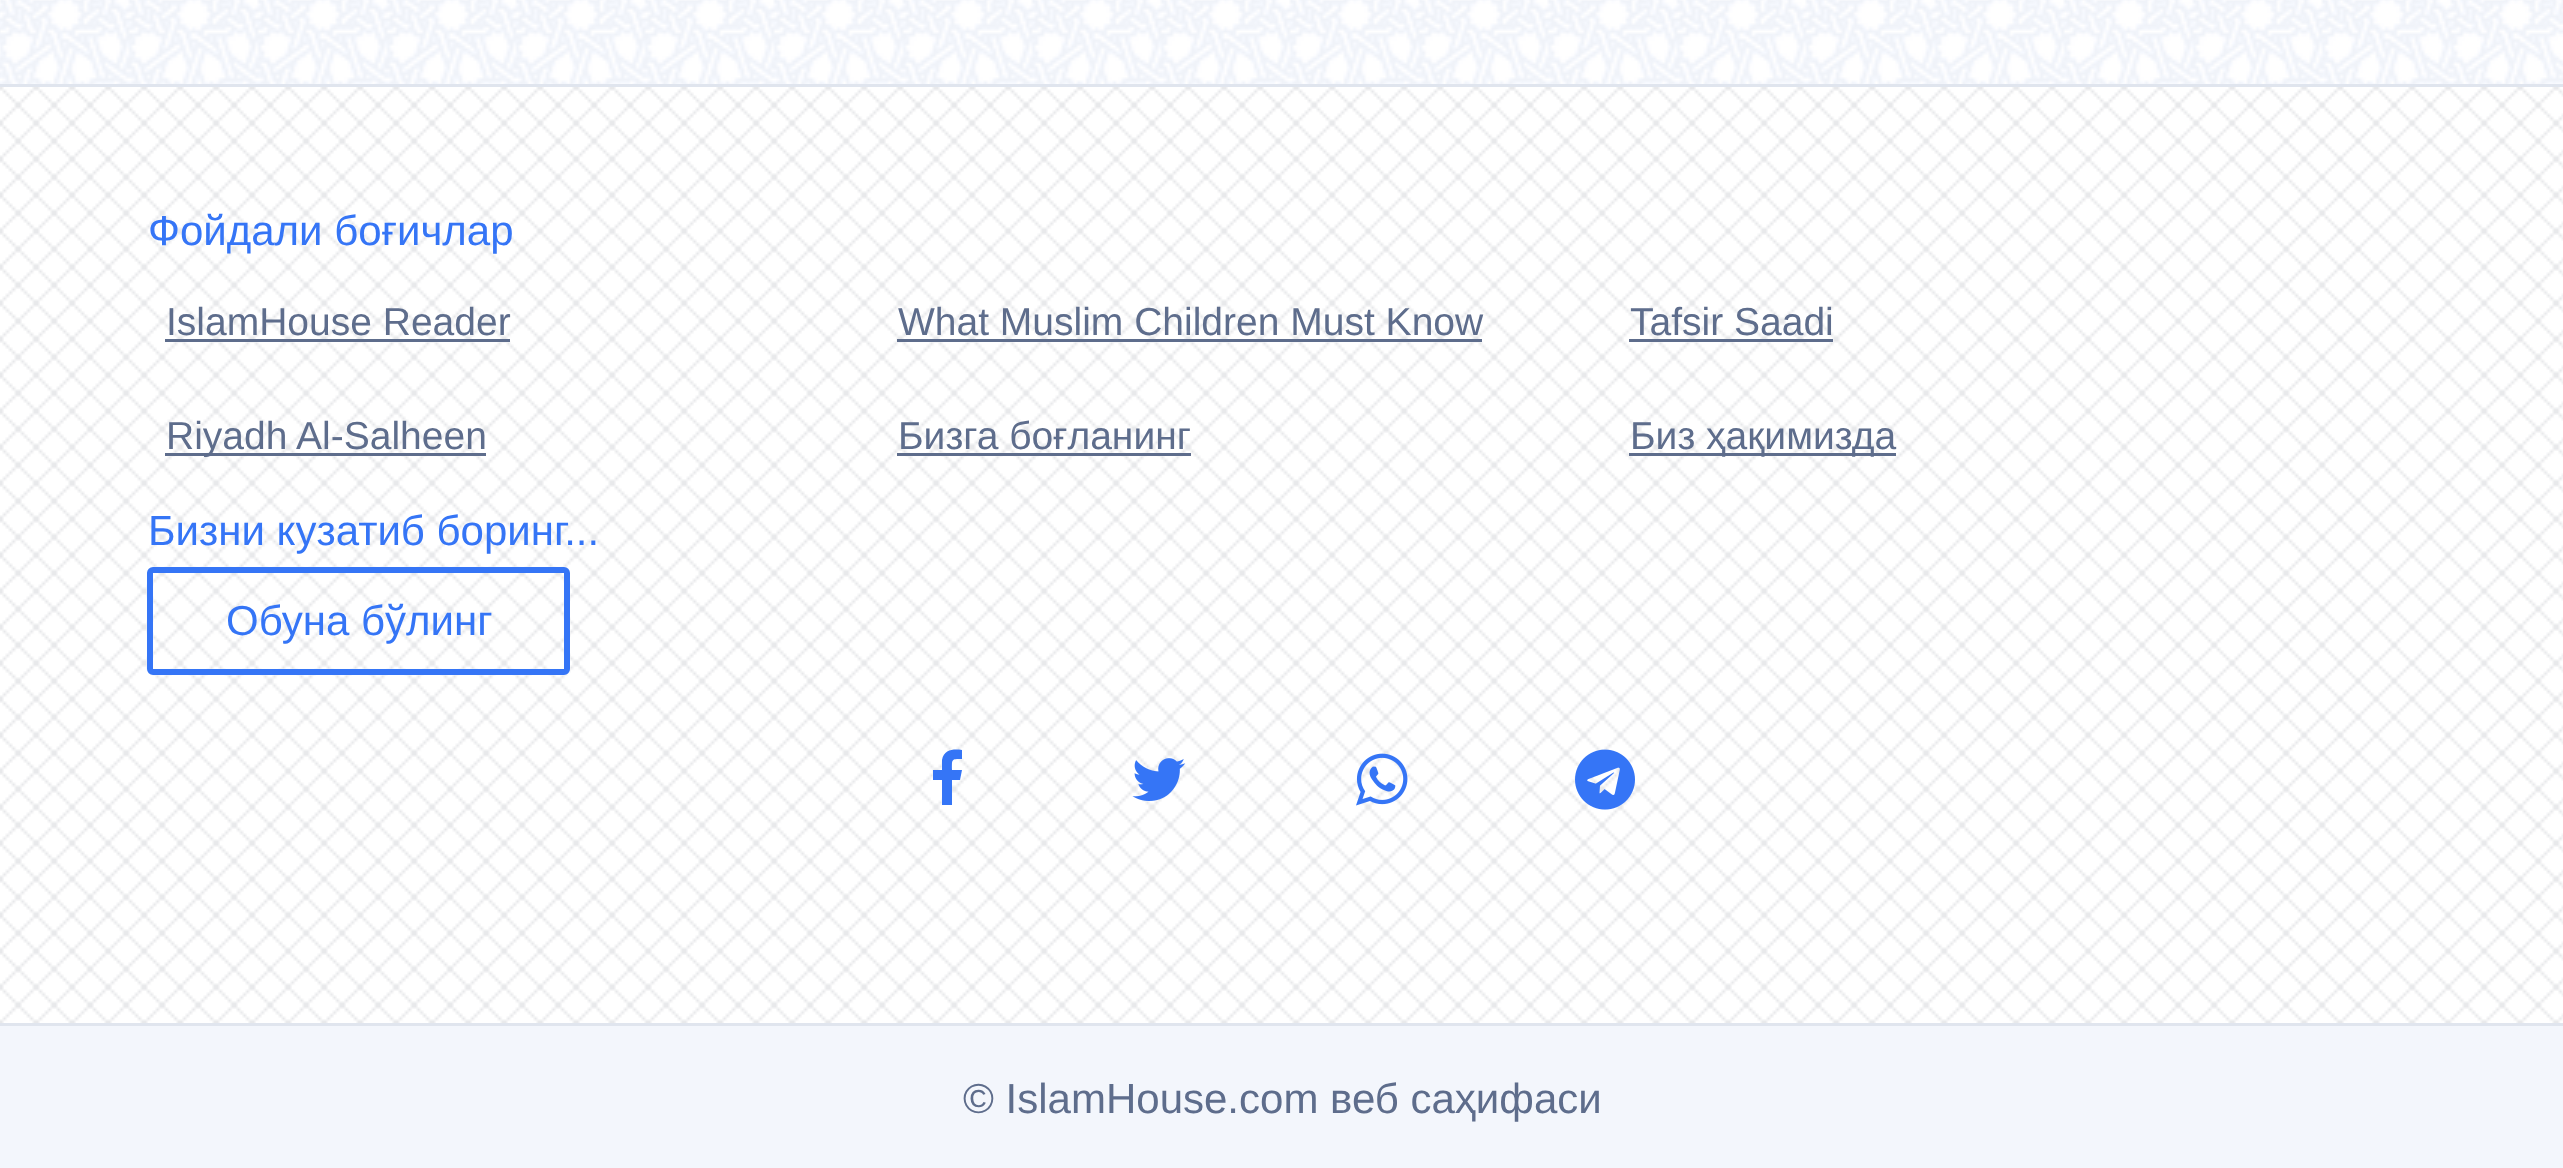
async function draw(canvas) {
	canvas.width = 2563;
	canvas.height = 1168;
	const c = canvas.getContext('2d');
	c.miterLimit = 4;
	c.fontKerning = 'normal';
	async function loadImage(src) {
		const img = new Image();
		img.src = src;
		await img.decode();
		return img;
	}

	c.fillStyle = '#f3f6fc';
	c.fillRect(0, 0, 2563, 1168);
	c.drawImage(await loadImage('img1.png'), 0, 0, 2563, 84);
	c.drawImage(await loadImage('img2.png'), 0, 87, 2563, 936);
	c.fillStyle = '#e0e5ee';
	c.fillRect(0, 84, 2563, 3);
	c.font = '42px Liberation Sans';
	c.fillStyle = '#3575f6';
	c.fillText('Фойдали боғичлар', 148, 245);
	c.font = '39px Liberation Sans';
	c.fillStyle = '#5e6d8c';
	c.fillText('IslamHouse Reader', 166, 335);
	c.fillRect(165, 339, 345, 3);
	c.fillText('What Muslim Children Must Know', 898, 335);
	c.fillRect(897, 339, 585, 3);
	c.fillText('Tafsir Saadi', 1630, 335);
	c.fillRect(1629, 339, 204, 3);
	c.fillRect(165, 453, 321, 3);
	c.fillText('Riyadh Al-Salheen', 166, 449);
	c.fillText('Бизга боғланинг', 898, 449);
	c.fillRect(897, 453, 294, 3);
	c.fillRect(1629, 453, 267, 3);
	c.fillText('Биз ҳақимизда', 1630, 449);
	c.font = '42px Liberation Sans';
	c.fillStyle = '#3575f6';
	c.fillText('Бизни кузатиб боринг...', 148, 545);
	c.beginPath();
	c.roundRect(150, 570, 417, 102, 3);
	c.strokeStyle = '#3575f6';
	c.lineWidth = 6;
	c.stroke();
	c.fillText('Обуна бўлинг', 226, 635);
	c.beginPath();
	c.moveTo(962, 750);
	c.lineTo(962, 759);
	c.bezierCurveTo(951, 759, 952, 759, 952, 770);
	c.lineTo(962, 770);
	c.lineTo(960, 780);
	c.lineTo(952, 780);
	c.lineTo(952, 805);
	c.lineTo(942, 805);
	c.lineTo(942, 780);
	c.lineTo(933, 780);
	c.lineTo(933, 770);
	c.lineTo(942, 770);
	c.lineTo(942, 760);
	c.bezierCurveTo(944, 749, 954, 749, 962, 750);
	c.closePath();
	c.fill();
	c.drawImage(await loadImage('img3.png'), 1132, 758, 54, 43);
	c.drawImage(await loadImage('img4.png'), 1356, 753, 52, 53);
	c.drawImage(await loadImage('img5.png'), 1575, 749, 60, 61);
	c.fillStyle = '#e0e5ee';
	c.fillRect(0, 1023, 2563, 3);
	c.fillStyle = '#5e6d8c';
	c.fillText('© IslamHouse.com веб саҳифаси', 963, 1113);
}

draw(document.querySelector('canvas'));
